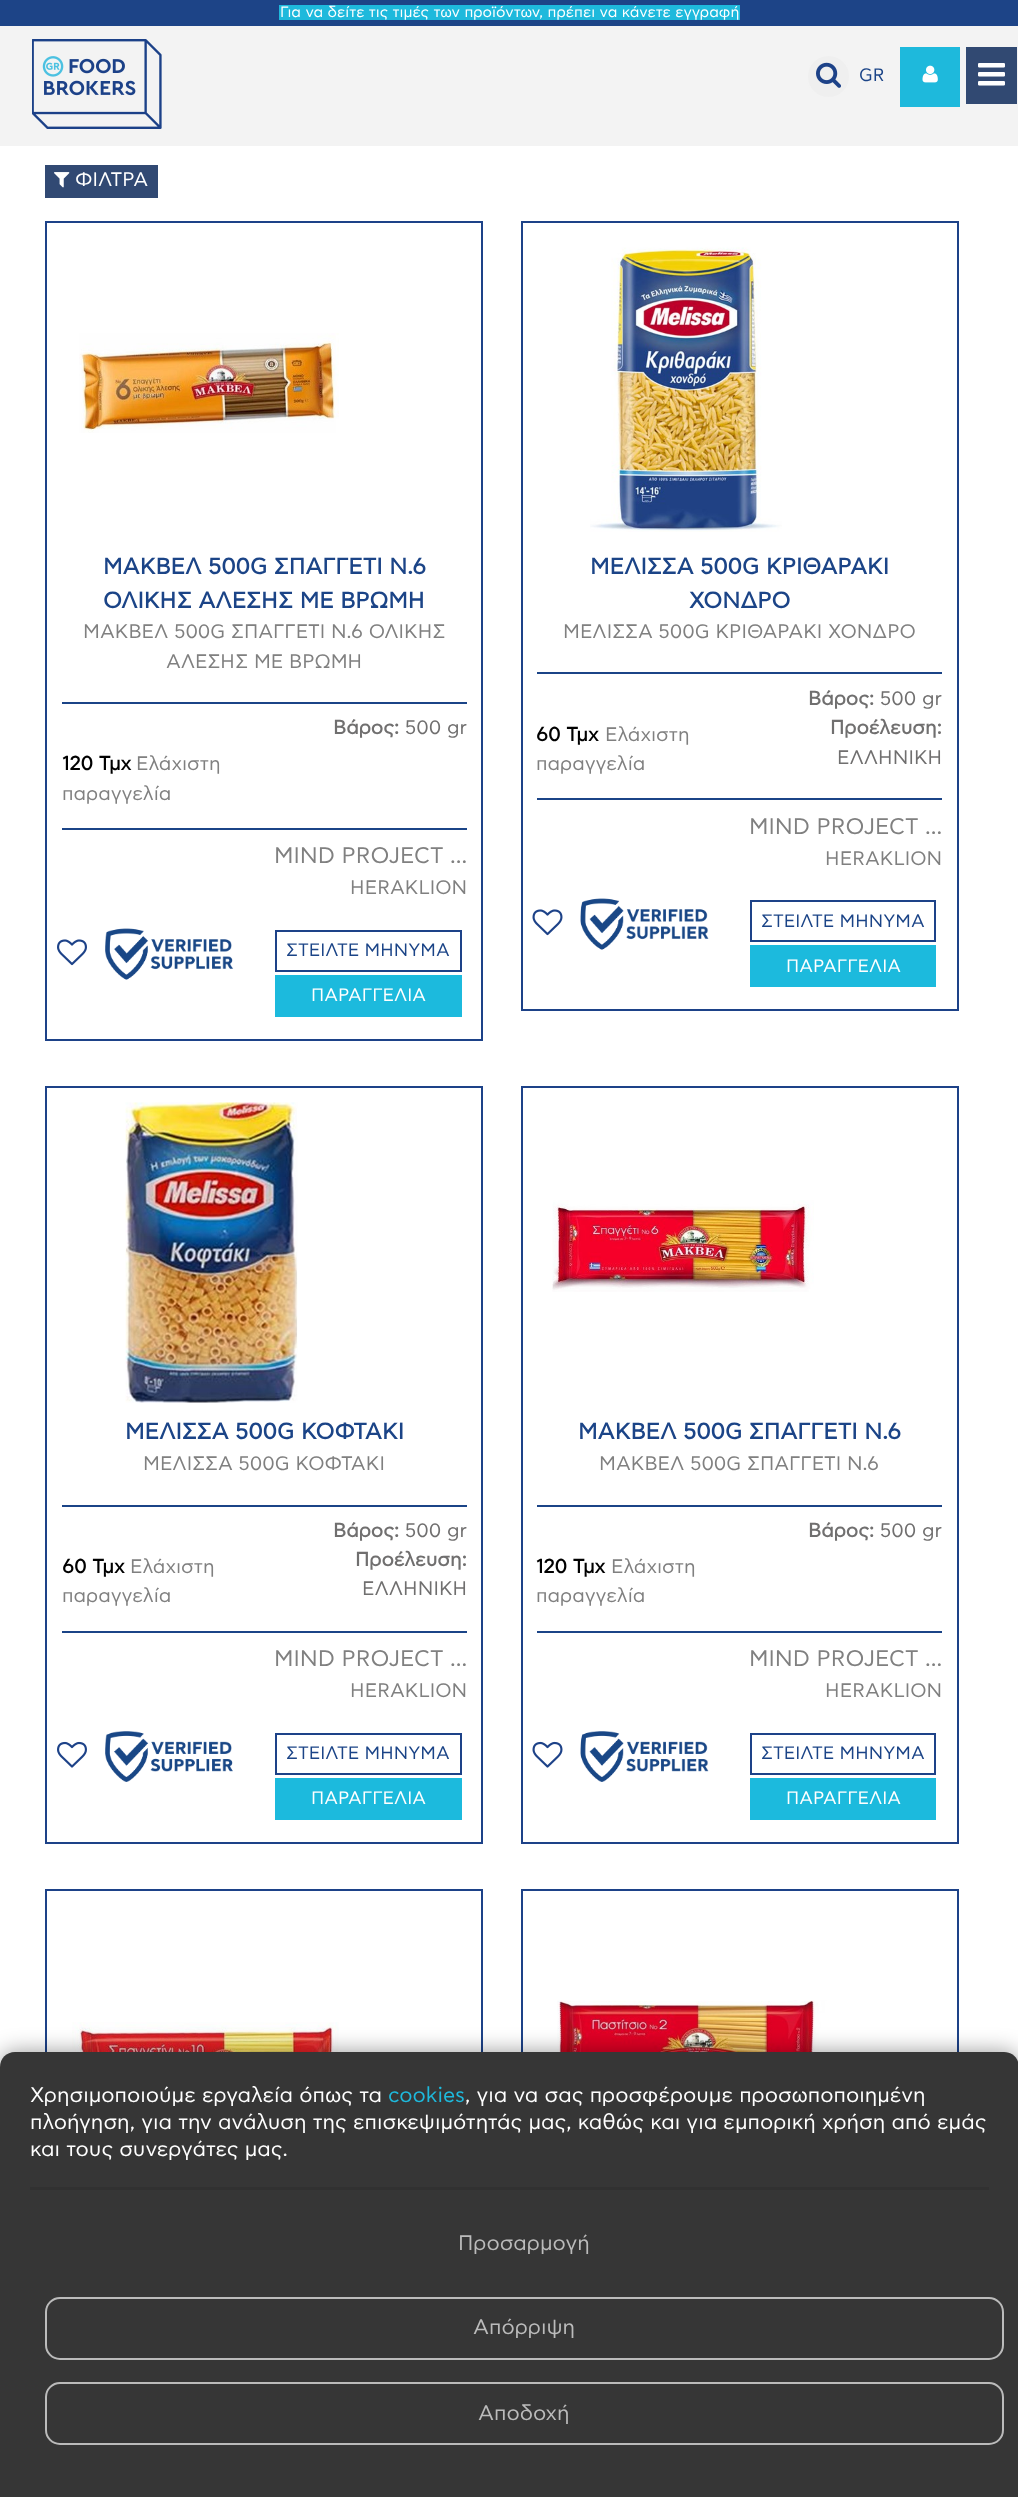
async function draw(canvas) {
	canvas.width = 1018;
	canvas.height = 2497;
	const c = canvas.getContext('2d');
	c.miterLimit = 4;
	c.fontKerning = 'normal';
	async function loadImage(src) {
		const img = new Image();
		img.src = src;
		await img.decode();
		return img;
	}

	c.fillStyle = '#fff';
	c.fillRect(0, 0, 1018, 2497);
	c.fillStyle = '#1d4487';
	c.fillRect(0, 0, 1018, 26);
	c.fillStyle = '#1eb9dc';
	c.fillRect(279, 5, 461, 15);
	c.font = '15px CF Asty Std';
	c.fillStyle = '#fff';
	c.fillText('Για να δείτε τις τιμές των προϊόντων, πρέπει να κάνετε εγγραφή', 280, 17);
	c.fillStyle = '#f3f3f3';
	c.fillRect(0, 26, 1018, 120);
	c.drawImage(await loadImage('img1.png'), 32, 39, 130, 90);
	c.fillStyle = '#efefef';
	c.beginPath();
	c.arc(828.5, 76.5, 21.5, 0, 2 * Math.PI);
	c.fill();
	c.strokeStyle = '#f3f3f3';
	c.lineWidth = 2;
	c.stroke();
	c.drawImage(await loadImage('img2.png'), 816, 62, 25, 26);
	c.font = '18px CF Asty Std';
	c.fillStyle = '#1b4487';
	c.fillText('GR', 859, 81);
	c.fillStyle = '#1eb9dc';
	c.fillRect(900, 47, 60, 60);
	c.drawImage(await loadImage('img3.png'), 922, 65, 16, 18);
	c.fillStyle = '#314972';
	c.fillRect(966, 47, 51, 57);
	c.drawImage(await loadImage('img4.png'), 978, 63, 27, 23);
	c.fillStyle = '#314973';
	c.fillRect(45, 165, 113, 33);
	c.drawImage(await loadImage('img5.png'), 54, 172, 16, 16);
	c.font = '19.5px CF Asty Std';
	c.fillStyle = '#fff';
	c.fillText('ΦΙΛΤΡΑ', 75, 186);
	c.strokeStyle = '#1d4288';
	c.strokeRect(46, 222, 436, 818);
	c.drawImage(await loadImage('img6.png'), 79, 333, 260, 100);
	c.font = 'bold 22.5px CF Asty Std';
	c.fillStyle = '#1b4487';
	c.fillText('ΜΑΚΒΕΛ 500G ΣΠΑΓΓΕΤΙ N.6', 103, 574);
	c.fillText('ΟΛΙΚΗΣ ΑΛΕΣΗΣ ΜΕ ΒΡΩΜΗ', 103, 608);
	c.font = '19.5px CF Asty Std';
	c.fillStyle = '#808080';
	c.fillText('ΜΑΚΒΕΛ 500G ΣΠΑΓΓΕΤΙ N.6 ΟΛΙΚΗΣ', 83, 638);
	c.fillText('ΑΛΕΣΗΣ ΜΕ ΒΡΩΜΗ', 166, 668);
	c.fillStyle = '#1b4487';
	c.fillRect(62, 702, 405, 2);
	c.font = 'bold 19.5px CF Asty Std';
	c.fillStyle = '#706f6f';
	c.fillText('Βάρος:', 333, 734);
	c.font = '19.5px CF Asty Std';
	c.fillText('500 gr', 405, 734);
	c.font = 'bold 19.5px CF Asty Std';
	c.fillStyle = '#000';
	c.fillText('120 Τμχ', 62, 770);
	c.font = '19.5px CF Asty Std';
	c.fillStyle = '#808080';
	c.fillText('Ελάχιστη', 136, 770);
	c.fillText('παραγγελία', 62, 800);
	c.fillStyle = '#1b4487';
	c.fillRect(62, 828, 405, 2);
	c.font = '22.5px CF Asty Std';
	c.fillStyle = '#808080';
	c.fillText('MIND PROJECT ...', 274, 863);
	c.font = '19.5px CF Asty Std';
	c.fillText('HERAKLION', 350, 894);
	c.drawImage(await loadImage('img7.png'), 57, 939, 30, 27);
	c.drawImage(await loadImage('img8.png'), 105, 928, 129, 52);
	c.strokeRect(276, 931, 185, 40);
	c.font = '18px CF Asty Std';
	c.fillStyle = '#1b4487';
	c.fillText('ΣΤΕΙΛΤΕ ΜΗΝΥΜΑ', 286, 956);
	c.fillStyle = '#1cbadd';
	c.fillRect(275, 975, 187, 42);
	c.fillStyle = '#fff';
	c.fillText('ΠΑΡΑΓΓΕΛΙΑ', 311, 1001);
	c.strokeRect(522, 222, 436, 788);
	c.drawImage(await loadImage('img9.png'), 590, 247, 192, 285);
	c.font = 'bold 22.5px CF Asty Std';
	c.fillStyle = '#1b4487';
	c.fillText('ΜΕΛΙΣΣΑ 500G ΚΡΙΘΑΡΑΚΙ', 590, 574);
	c.fillText('ΧΟΝΔΡΟ', 689, 608);
	c.font = '19.5px CF Asty Std';
	c.fillStyle = '#808080';
	c.fillText('ΜΕΛΙΣΣΑ 500G ΚΡΙΘΑΡΑΚΙ ΧΟΝΔΡΟ', 563, 638);
	c.fillStyle = '#1b4487';
	c.fillRect(537, 672, 405, 2);
	c.font = 'bold 19.5px CF Asty Std';
	c.fillStyle = '#000';
	c.fillText('60 Τμχ', 536, 741);
	c.font = '19.5px CF Asty Std';
	c.fillStyle = '#808080';
	c.fillText('Ελάχιστη', 605, 741);
	c.fillText('παραγγελία', 536, 770);
	c.font = 'bold 19.5px CF Asty Std';
	c.fillStyle = '#706f6f';
	c.fillText('Βάρος:', 808, 705);
	c.font = '19.5px CF Asty Std';
	c.fillText('500 gr', 880, 705);
	c.font = 'bold 19.5px CF Asty Std';
	c.fillText('Προέλευση:', 830, 734);
	c.font = '19.5px CF Asty Std';
	c.fillText('ΕΛΛΗΝΙΚΗ', 837, 764);
	c.fillStyle = '#1b4487';
	c.fillRect(537, 798, 405, 2);
	c.font = '22.5px CF Asty Std';
	c.fillStyle = '#808080';
	c.fillText('MIND PROJECT ...', 749, 834);
	c.font = '19.5px CF Asty Std';
	c.fillText('HERAKLION', 825, 865);
	c.drawImage(await loadImage('img10.png'), 532, 909, 31, 27);
	c.drawImage(await loadImage('img11.png'), 580, 898, 129, 52);
	c.strokeRect(751, 901, 184, 40);
	c.font = '18px CF Asty Std';
	c.fillStyle = '#1b4487';
	c.fillText('ΣΤΕΙΛΤΕ ΜΗΝΥΜΑ', 761, 927);
	c.fillStyle = '#1cbadd';
	c.fillRect(750, 945, 186, 42);
	c.fillStyle = '#fff';
	c.fillText('ΠΑΡΑΓΓΕΛΙΑ', 786, 972);
	c.strokeRect(46, 1087, 436, 756);
	c.drawImage(await loadImage('img12.png'), 125, 1102, 173, 301);
	c.font = 'bold 22.5px CF Asty Std';
	c.fillStyle = '#1b4487';
	c.fillText('ΜΕΛΙΣΣΑ 500G ΚΟΦΤΑΚΙ', 125, 1439);
	c.font = '19.5px CF Asty Std';
	c.fillStyle = '#808080';
	c.fillText('ΜΕΛΙΣΣΑ 500G ΚΟΦΤΑΚΙ', 143, 1470);
	c.fillStyle = '#1b4487';
	c.fillRect(62, 1505, 405, 2);
	c.font = 'bold 19.5px CF Asty Std';
	c.fillStyle = '#000';
	c.fillText('60 Τμχ', 62, 1573);
	c.font = '19.5px CF Asty Std';
	c.fillStyle = '#808080';
	c.fillText('Ελάχιστη', 130, 1573);
	c.fillText('παραγγελία', 62, 1602);
	c.font = 'bold 19.5px CF Asty Std';
	c.fillStyle = '#706f6f';
	c.fillText('Βάρος:', 333, 1537);
	c.font = '19.5px CF Asty Std';
	c.fillText('500 gr', 405, 1537);
	c.font = 'bold 19.5px CF Asty Std';
	c.fillText('Προέλευση:', 355, 1566);
	c.font = '19.5px CF Asty Std';
	c.fillText('ΕΛΛΗΝΙΚΗ', 362, 1595);
	c.fillStyle = '#1b4487';
	c.fillRect(62, 1631, 405, 2);
	c.font = '22.5px CF Asty Std';
	c.fillStyle = '#808080';
	c.fillText('MIND PROJECT ...', 274, 1666);
	c.font = '19.5px CF Asty Std';
	c.fillText('HERAKLION', 350, 1697);
	c.drawImage(await loadImage('img13.png'), 57, 1741, 30, 27);
	c.drawImage(await loadImage('img14.png'), 105, 1731, 128, 51);
	c.strokeRect(276, 1734, 185, 40);
	c.font = '18px CF Asty Std';
	c.fillStyle = '#1b4487';
	c.fillText('ΣΤΕΙΛΤΕ ΜΗΝΥΜΑ', 286, 1759);
	c.fillStyle = '#1cbadd';
	c.fillRect(275, 1778, 187, 42);
	c.fillStyle = '#fff';
	c.fillText('ΠΑΡΑΓΓΕΛΙΑ', 311, 1804);
	c.strokeRect(522, 1087, 436, 756);
	c.drawImage(await loadImage('img15.png'), 552, 1200, 262, 92);
	c.font = 'bold 22.5px CF Asty Std';
	c.fillStyle = '#1b4487';
	c.fillText('ΜΑΚΒΕΛ 500G ΣΠΑΓΓΕΤΙ N.6', 578, 1439);
	c.font = '19.5px CF Asty Std';
	c.fillStyle = '#808080';
	c.fillText('ΜΑΚΒΕΛ 500G ΣΠΑΓΓΕΤΙ N.6', 599, 1470);
	c.fillStyle = '#1b4487';
	c.fillRect(537, 1505, 405, 2);
	c.font = 'bold 19.5px CF Asty Std';
	c.fillStyle = '#706f6f';
	c.fillText('Βάρος:', 808, 1537);
	c.font = '19.5px CF Asty Std';
	c.fillText('500 gr', 880, 1537);
	c.font = 'bold 19.5px CF Asty Std';
	c.fillStyle = '#000';
	c.fillText('120 Τμχ', 536, 1573);
	c.font = '19.5px CF Asty Std';
	c.fillStyle = '#808080';
	c.fillText('Ελάχιστη', 611, 1573);
	c.fillText('παραγγελία', 536, 1602);
	c.fillStyle = '#1b4487';
	c.fillRect(537, 1631, 405, 2);
	c.font = '22.5px CF Asty Std';
	c.fillStyle = '#808080';
	c.fillText('MIND PROJECT ...', 749, 1666);
	c.font = '19.5px CF Asty Std';
	c.fillText('HERAKLION', 825, 1697);
	c.drawImage(await loadImage('img16.png'), 532, 1741, 31, 27);
	c.drawImage(await loadImage('img17.png'), 580, 1731, 129, 51);
	c.strokeRect(751, 1734, 184, 40);
	c.font = '18px CF Asty Std';
	c.fillStyle = '#1b4487';
	c.fillText('ΣΤΕΙΛΤΕ ΜΗΝΥΜΑ', 761, 1759);
	c.fillStyle = '#1cbadd';
	c.fillRect(750, 1778, 186, 42);
	c.fillStyle = '#fff';
	c.fillText('ΠΑΡΑΓΓΕΛΙΑ', 786, 1804);
	c.strokeRect(46, 1890, 436, 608);
	c.drawImage(await loadImage('img18.png'), 72, 2022, 267, 30);
	c.strokeRect(522, 1890, 436, 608);
	c.drawImage(await loadImage('img19.png'), 557, 2000, 277, 52);
	c.fillStyle = '#00000066';
	c.filter = 'blur(11px)';
	c.beginPath();
	c.roundRect(0, 2052, 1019, 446, 15);
	c.fill();
	c.filter = 'none';
	c.fillStyle = '#363636';
	c.beginPath();
	c.moveTo(15, 2052);
	c.lineTo(1004, 2052);
	c.bezierCurveTo(1012.5, 2052, 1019, 2058.5, 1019, 2067);
	c.lineTo(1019, 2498);
	c.lineTo(0, 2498);
	c.lineTo(0, 2067);
	c.bezierCurveTo(0, 2058.5, 6.5, 2052, 15, 2052);
	c.closePath();
	c.fill();
	c.font = '21px CF Asty Std';
	c.fillStyle = '#fff';
	c.fillText('Χρησιμοποιούμε εργαλεία όπως τα', 30, 2102);
	c.fillStyle = '#1eb9dc';
	c.fillText('cookies', 388, 2102);
	c.fillStyle = '#fff';
	for (const [text, x, y] of [
		[', για να σας προσφέρουμε προσωποποιημένη', 465, 2102],
		['πλοήγηση, για την ανάλυση της επισκεψιμότητάς μας, καθώς και για εμπορική χρήση από εμάς', 30, 2129],
		['και τους συνεργάτες μας.', 30, 2156],
	]) {
		c.fillText(text, x, y);
	}
	c.fillStyle = '#313131';
	c.fillRect(30, 2187, 959, 3);
	c.fillStyle = '#bbb';
	c.fillText('Προσαρμογή', 458, 2250);
	c.beginPath();
	c.roundRect(46, 2298, 957, 61, 14);
	c.strokeStyle = '#bbb';
	c.stroke();
	c.fillText('Απόρριψη', 473, 2334);
	c.beginPath();
	c.roundRect(46, 2383, 957, 61, 14);
	c.stroke();
	c.fillText('Αποδοχή', 478, 2420);
}

draw(document.querySelector('canvas'));
